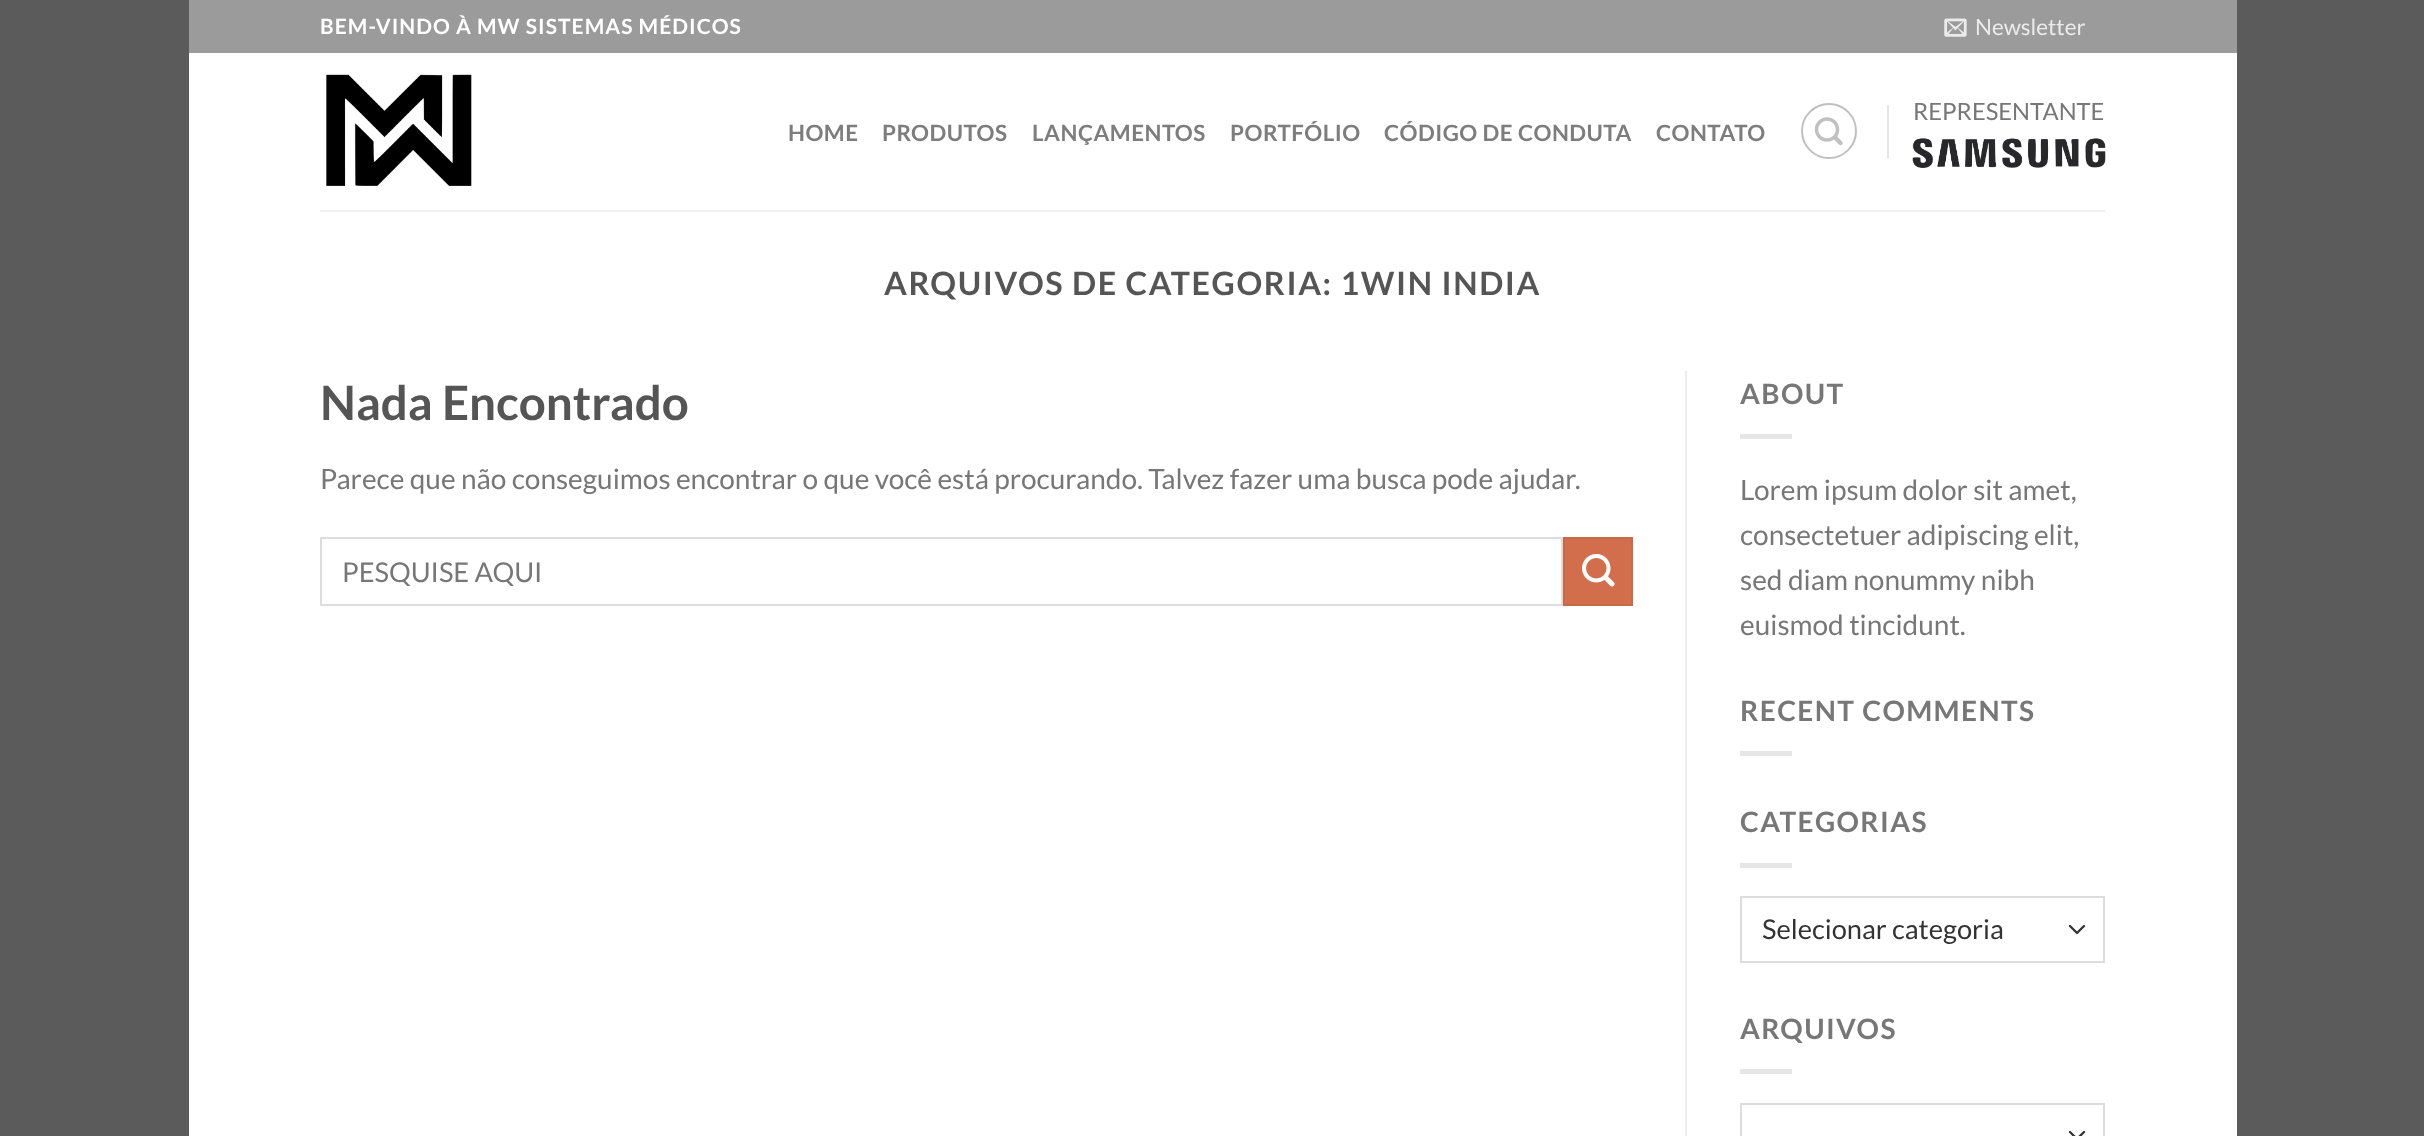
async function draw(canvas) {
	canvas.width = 2424;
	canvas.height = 1136;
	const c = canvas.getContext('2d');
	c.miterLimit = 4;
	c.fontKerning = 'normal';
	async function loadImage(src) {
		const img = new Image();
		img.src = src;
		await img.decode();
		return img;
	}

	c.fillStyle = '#5b5b5b';
	c.fillRect(0, 0, 2424, 1136);
	c.fillStyle = '#fff';
	c.fillRect(189, 53, 2048, 1083);
	c.fillStyle = '#9b9b9b';
	c.fillRect(189, 0, 2048, 53);
	c.letterSpacing = '1.05px';
	c.font = 'bold 21px Lato';
	c.fillStyle = '#fff';
	c.fillText('BEM-VINDO À MW SISTEMAS MÉDICOS', 320, 34);
	c.drawImage(await loadImage('img1.png'), 1944, 18, 23, 19);
	c.letterSpacing = '0px';
	c.font = '22.4px Lato';
	c.fillStyle = '#ebebeb';
	c.fillText('Newsletter', 1975, 35);
	c.drawImage(await loadImage('img2.png'), 326, 74, 146, 112);
	c.beginPath();
	c.arc(1829, 131, 27, 0, 2 * Math.PI);
	c.strokeStyle = '#c0c0c0';
	c.lineWidth = 2;
	c.stroke();
	c.drawImage(await loadImage('img3.png'), 1814, 117, 29, 29);
	c.fillStyle = '#e6e6e6';
	c.fillRect(1887, 105, 2, 53);
	c.font = '23.75px Lato';
	c.fillStyle = '#777';
	c.fillText('REPRESENTANTE', 1913, 120);
	c.drawImage(await loadImage('img4.png'), 1912, 138, 194, 30);
	c.letterSpacing = '0.5px';
	c.font = 'bold 22.4px Lato';
	c.fillStyle = '#7d7d7d';
	for (const [text, x, y] of [
		['HOME', 788, 141],
		['PRODUTOS', 882, 141],
		['LANÇAMENTOS', 1032, 141],
		['PORTFÓLIO', 1230, 141],
		['CÓDIGO DE CONDUTA', 1384, 141],
		['CONTATO', 1656, 141],
	]) {
		c.fillText(text, x, y);
	}
	c.fillStyle = '#f1f1f1';
	c.fillRect(320, 210, 1785, 2);
	c.letterSpacing = '1.6px';
	c.font = 'bold 32.2px Lato';
	c.fillStyle = '#555';
	c.fillText('ARQUIVOS DE CATEGORIA: 1WIN INDIA', 884, 295);
	c.letterSpacing = '0px';
	c.font = 'bold 47.5px Lato';
	c.fillText('Nada Encontrado', 320, 420);
	c.font = '28px Lato';
	c.fillStyle = '#777';
	c.fillText('Parece que não conseguimos encontrar o que você está procurando. Talvez fazer uma busca pode ajudar.', 320, 489);
	c.strokeStyle = '#ddd';
	c.strokeRect(321, 538, 1241, 67);
	c.font = '27.25px Lato';
	c.fillText('PESQUISE AQUI', 342, 582);
	c.fillStyle = '#d26e4b';
	c.beginPath();
	c.rect(1564, 538, 68, 67);
	c.fill();
	c.strokeStyle = '#c86947';
	c.stroke();
	c.drawImage(await loadImage('img5.png'), 1582, 553, 33, 34);
	c.fillStyle = '#ececec';
	c.fillRect(1685, 371, 2, 765);
	c.letterSpacing = '1.4px';
	c.font = 'bold 28px Lato';
	c.fillStyle = '#777';
	c.fillText('ABOUT', 1740, 404);
	c.fillStyle = '#e6e6e6';
	c.fillRect(1740, 434, 52, 5);
	c.letterSpacing = '0px';
	c.font = '28px Lato';
	c.fillStyle = '#777';
	for (const [text, x, y] of [
		['Lorem ipsum dolor sit amet,', 1740, 500],
		['consectetuer adipiscing elit,', 1740, 545],
		['sed diam nonummy nibh', 1740, 590],
		['euismod tincidunt.', 1740, 635],
	]) {
		c.fillText(text, x, y);
	}
	c.letterSpacing = '1.4px';
	c.font = 'bold 28px Lato';
	c.fillText('RECENT COMMENTS', 1740, 721);
	c.fillStyle = '#e6e6e6';
	c.fillRect(1740, 751, 52, 5);
	c.fillStyle = '#777';
	c.fillText('CATEGORIAS', 1740, 832);
	c.fillStyle = '#e6e6e6';
	c.fillRect(1740, 863, 52, 5);
	c.beginPath();
	c.moveTo(2070, 926);
	c.lineTo(2077, 933);
	c.lineTo(2084, 926);
	c.strokeStyle = '#333';
	c.lineWidth = 2.3;
	c.lineCap = 'round';
	c.lineJoin = 'round';
	c.stroke();
	c.strokeStyle = '#ddd';
	c.lineWidth = 2;
	c.lineJoin = 'miter';
	c.strokeRect(1741, 897, 363, 65);
	c.letterSpacing = '0px';
	c.font = '27.25px Lato';
	c.fillStyle = '#333';
	c.fillText('Selecionar categoria', 1762, 939);
	c.letterSpacing = '1.4px';
	c.font = 'bold 28px Lato';
	c.fillStyle = '#777';
	c.fillText('ARQUIVOS', 1740, 1039);
	c.fillStyle = '#e6e6e6';
	c.fillRect(1740, 1069, 52, 5);
	c.beginPath();
	c.moveTo(2070, 1132);
	c.lineTo(2077, 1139);
	c.lineTo(2084, 1132);
	c.strokeStyle = '#333';
	c.lineWidth = 2.3;
	c.lineJoin = 'round';
	c.stroke();
	c.strokeStyle = '#ddd';
	c.lineWidth = 2;
	c.lineJoin = 'miter';
	c.strokeRect(1741, 1104, 363, 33);
}

draw(document.querySelector('canvas'));
